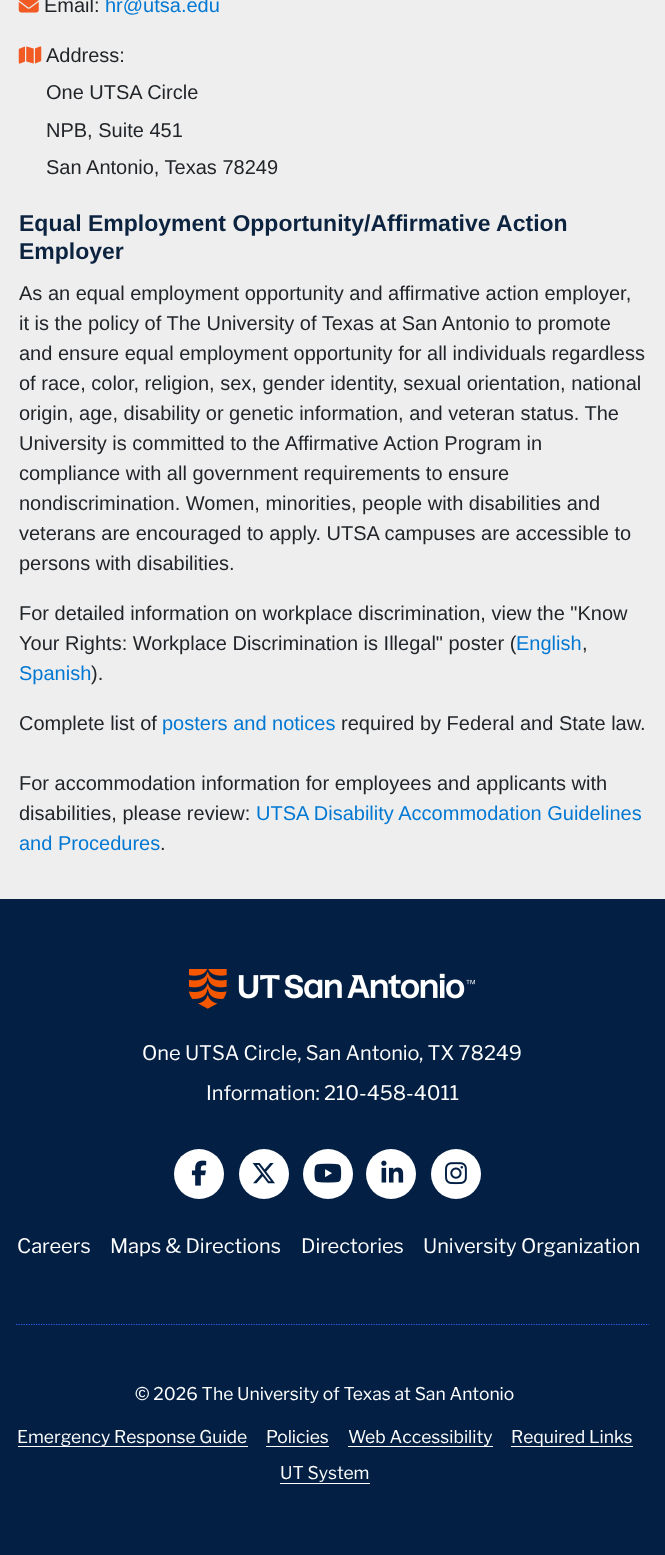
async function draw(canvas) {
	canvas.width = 665;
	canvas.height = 1555;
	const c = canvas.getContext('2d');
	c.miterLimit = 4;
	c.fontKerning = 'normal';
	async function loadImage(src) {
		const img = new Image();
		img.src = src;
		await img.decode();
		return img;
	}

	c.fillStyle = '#eee';
	c.fillRect(0, 0, 665, 1555);
	c.drawImage(await loadImage('img1.png'), 18, 0, 21, 13);
	c.font = '20px Liberation Sans';
	c.fillStyle = '#212529';
	c.fillText('Email:', 44, 12);
	c.fillStyle = '#0278d3';
	c.fillText('hr@utsa.edu', 105, 12);
	c.drawImage(await loadImage('img2.png'), 18, 46, 24, 18);
	c.fillStyle = '#212529';
	for (const [text, x, y] of [
		['Address:', 46, 62],
		['One UTSA Circle', 46, 99],
		['NPB, Suite 451', 46, 137],
		['San Antonio, Texas 78249', 46, 174],
	]) {
		c.fillText(text, x, y);
	}
	c.font = 'bold 23px Liberation Sans';
	c.fillStyle = '#0c2340';
	c.fillText('Equal Employment Opportunity/Affirmative Action', 19, 231);
	c.fillText('Employer', 19, 259);
	c.font = '20px Liberation Sans';
	c.fillStyle = '#212529';
	for (const [text, x, y] of [
		['As an equal employment opportunity and affirmative action employer,', 19, 300],
		['it is the policy of The University of Texas at San Antonio to promote', 19, 330],
		['and ensure equal employment opportunity for all individuals regardless', 19, 360],
		['of race, color, religion, sex, gender identity, sexual orientation, national', 19, 390],
		['origin, age, disability or genetic information, and veteran status. The', 19, 420],
		['University is committed to the Affirmative Action Program in', 19, 450],
		['compliance with all government requirements to ensure', 19, 480],
		['nondiscrimination. Women, minorities, people with disabilities and', 19, 510],
		['veterans are encouraged to apply. UTSA campuses are accessible to', 19, 540],
		['persons with disabilities.', 19, 570],
		['For detailed information on workplace discrimination, view the "Know', 19, 620],
		['Your Rights: Workplace Discrimination is Illegal" poster (', 19, 650],
	]) {
		c.fillText(text, x, y);
	}
	c.fillStyle = '#0278d3';
	c.fillText('English', 516, 650);
	c.fillStyle = '#212529';
	c.fillText(',', 582, 650);
	c.fillStyle = '#0278d3';
	c.fillText('Spanish', 19, 680);
	c.fillStyle = '#212529';
	c.fillText(').', 91, 680);
	c.fillText('Complete list of', 19, 730);
	c.fillStyle = '#0278d3';
	c.fillText('posters and notices', 162, 730);
	c.fillStyle = '#212529';
	for (const [text, x, y] of [
		['required by Federal and State law.', 341, 730],
		['For accommodation information for employees and applicants with', 19, 790],
		['disabilities, please review:', 19, 820],
	]) {
		c.fillText(text, x, y);
	}
	c.fillStyle = '#0278d3';
	c.fillText('UTSA Disability Accommodation Guidelines', 256, 820);
	c.fillText('and Procedures', 19, 850);
	c.fillStyle = '#212529';
	c.fillText('.', 160, 850);
	c.fillStyle = '#032044';
	c.fillRect(0, 899, 665, 656);
	c.drawImage(await loadImage('img3.png'), 189, 969, 286, 40);
	c.font = '20px Libre Franklin';
	c.fillStyle = '#fff';
	c.fillText('One UTSA Circle, San Antonio, TX 78249', 142, 1060);
	c.fillText('Information: 210-458-4011', 206, 1100);
	c.beginPath();
	c.arc(199, 1174, 25, 0, 2 * Math.PI);
	c.fill();
	c.drawImage(await loadImage('img4.png'), 191, 1160, 16, 26);
	c.beginPath();
	c.arc(264, 1174, 25, 0, 2 * Math.PI);
	c.fill();
	c.drawImage(await loadImage('img5.png'), 252, 1163, 23, 21);
	c.beginPath();
	c.arc(328, 1174, 25, 0, 2 * Math.PI);
	c.fill();
	c.drawImage(await loadImage('img6.png'), 314, 1163, 28, 20);
	c.beginPath();
	c.arc(391, 1174, 25, 0, 2 * Math.PI);
	c.fill();
	c.drawImage(await loadImage('img7.png'), 381, 1160, 23, 23);
	c.beginPath();
	c.arc(456, 1174, 25, 0, 2 * Math.PI);
	c.fill();
	c.drawImage(await loadImage('img8.png'), 445, 1162, 22, 23);
	for (const [text, x, y] of [
		['Careers', 17, 1253],
		['Maps & Directions', 110, 1253],
		['Directories', 301, 1253],
		['University Organization', 423, 1253],
	]) {
		c.fillText(text, x, y);
	}
	c.beginPath();
	c.moveTo(16, 1324.5);
	c.lineTo(649, 1324.5);
	c.strokeStyle = '#265bf7';
	c.lineWidth = 1.2;
	c.setLineDash([1.25, 1.25]);
	c.stroke();
	c.font = '17.5px Libre Franklin';
	c.fillText('© 2026 The University of Texas at San Antonio', 135, 1400);
	c.fillRect(18, 1446, 230, 1);
	c.fillText('Emergency Response Guide', 17, 1443);
	c.fillText('Policies', 266, 1443);
	c.fillRect(266, 1446, 63, 1);
	c.fillText('Web Accessibility', 348, 1443);
	c.fillRect(348, 1446, 145, 1);
	c.fillText('Required Links', 511, 1443);
	c.fillRect(511, 1446, 122, 1);
	c.fillText('UT System', 280, 1479);
	c.fillRect(280, 1483, 90, 1);
}

draw(document.querySelector('canvas'));
